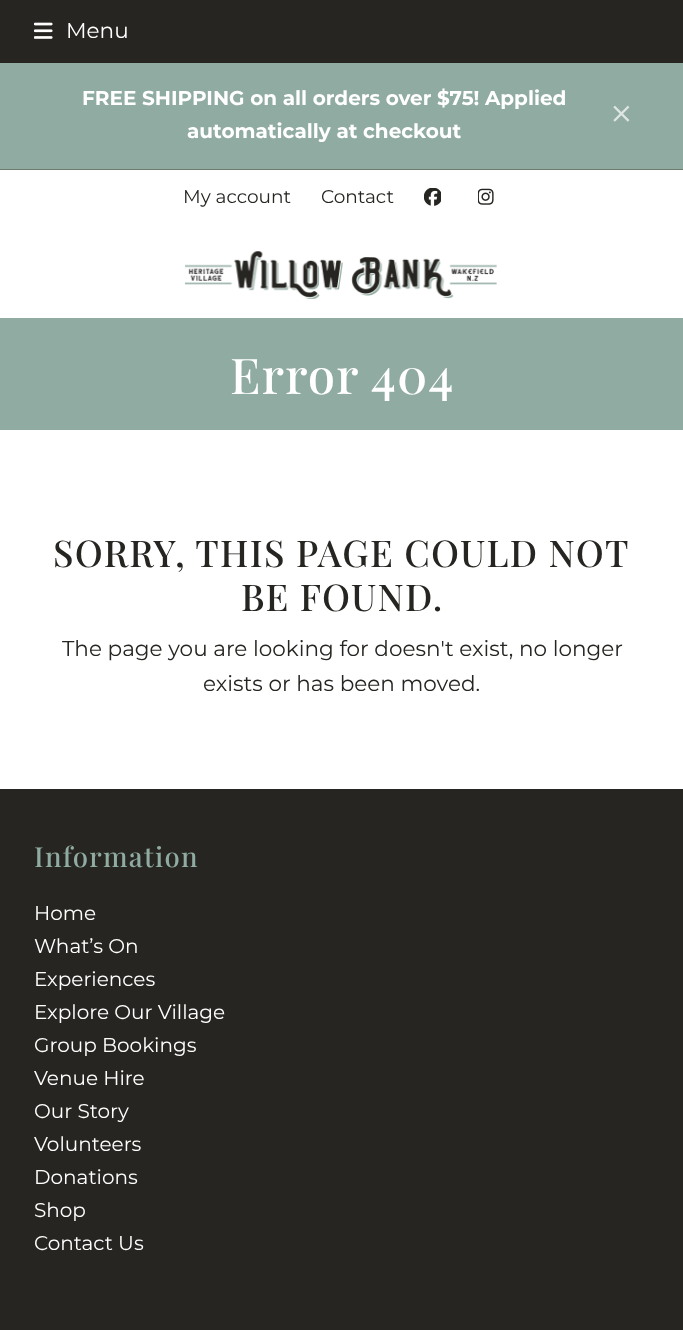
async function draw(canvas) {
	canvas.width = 683;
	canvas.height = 1330;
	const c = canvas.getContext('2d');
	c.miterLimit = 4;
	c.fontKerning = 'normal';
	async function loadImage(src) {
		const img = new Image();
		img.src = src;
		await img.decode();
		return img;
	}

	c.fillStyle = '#fff';
	c.fillRect(0, 0, 683, 1330);
	c.fillStyle = '#262521';
	c.fillRect(0, 0, 683, 63);
	c.drawImage(await loadImage('img1.png'), 34, 22, 19, 17);
	c.font = '21.55px Montserrat';
	c.fillStyle = '#fff';
	c.fillText('Menu', 66, 38);
	c.fillStyle = '#90aba1';
	c.fillRect(0, 63, 683, 106);
	c.fillStyle = '#6e7a6a';
	c.fillRect(0, 169, 683, 1);
	c.font = 'bold 20px Montserrat';
	c.fillStyle = '#fff';
	c.fillText('FREE SHIPPING on all orders over $75! Applied', 82, 105);
	c.drawImage(await loadImage('img2.png'), 613, 105, 17, 17);
	c.fillText('automatically at checkout', 187, 138);
	c.font = '18.5px Montserrat';
	c.fillStyle = '#262521';
	c.fillText('My account', 183, 203);
	c.fillText('Contact', 321, 203);
	c.drawImage(await loadImage('img3.png'), 424, 188, 17, 18);
	c.drawImage(await loadImage('img4.png'), 478, 188, 16, 17);
	c.drawImage(await loadImage('img5.png'), 185, 251, 312, 48);
	c.fillStyle = '#90aba1';
	c.fillRect(0, 318, 683, 112);
	c.letterSpacing = '1.25px';
	c.font = '500 49.25px Playfair Display';
	c.fillStyle = '#fff';
	c.fillText('Error 404', 230, 394);
	c.font = '500 36.9px Playfair Display';
	c.fillStyle = '#262521';
	c.fillText('SORRY, THIS PAGE COULD NOT', 53, 567);
	c.fillText('BE FOUND.', 241, 611);
	c.letterSpacing = '0px';
	c.font = '21.55px Montserrat';
	c.fillText('The page you are looking for doesn\'t exist, no longer', 62, 656);
	c.fillText('exists or has been moved.', 203, 691);
	c.fillRect(0, 789, 683, 541);
	c.letterSpacing = '1.25px';
	c.font = '500 27.5px Playfair Display';
	c.fillStyle = '#90aba1';
	c.fillText('Information', 34, 867);
	c.letterSpacing = '0px';
	c.font = '20px Montserrat';
	c.fillStyle = '#fff';
	for (const [text, x, y] of [
		['Home', 34, 920],
		['What’s On', 34, 953],
		['Experiences', 34, 986],
		['Explore Our Village', 34, 1019],
		['Group Bookings', 34, 1052],
		['Venue Hire', 34, 1085],
		['Our Story', 34, 1118],
		['Volunteers', 34, 1151],
		['Donations', 34, 1184],
		['Shop', 34, 1217],
		['Contact Us', 34, 1250],
	]) {
		c.fillText(text, x, y);
	}
}

draw(document.querySelector('canvas'));
